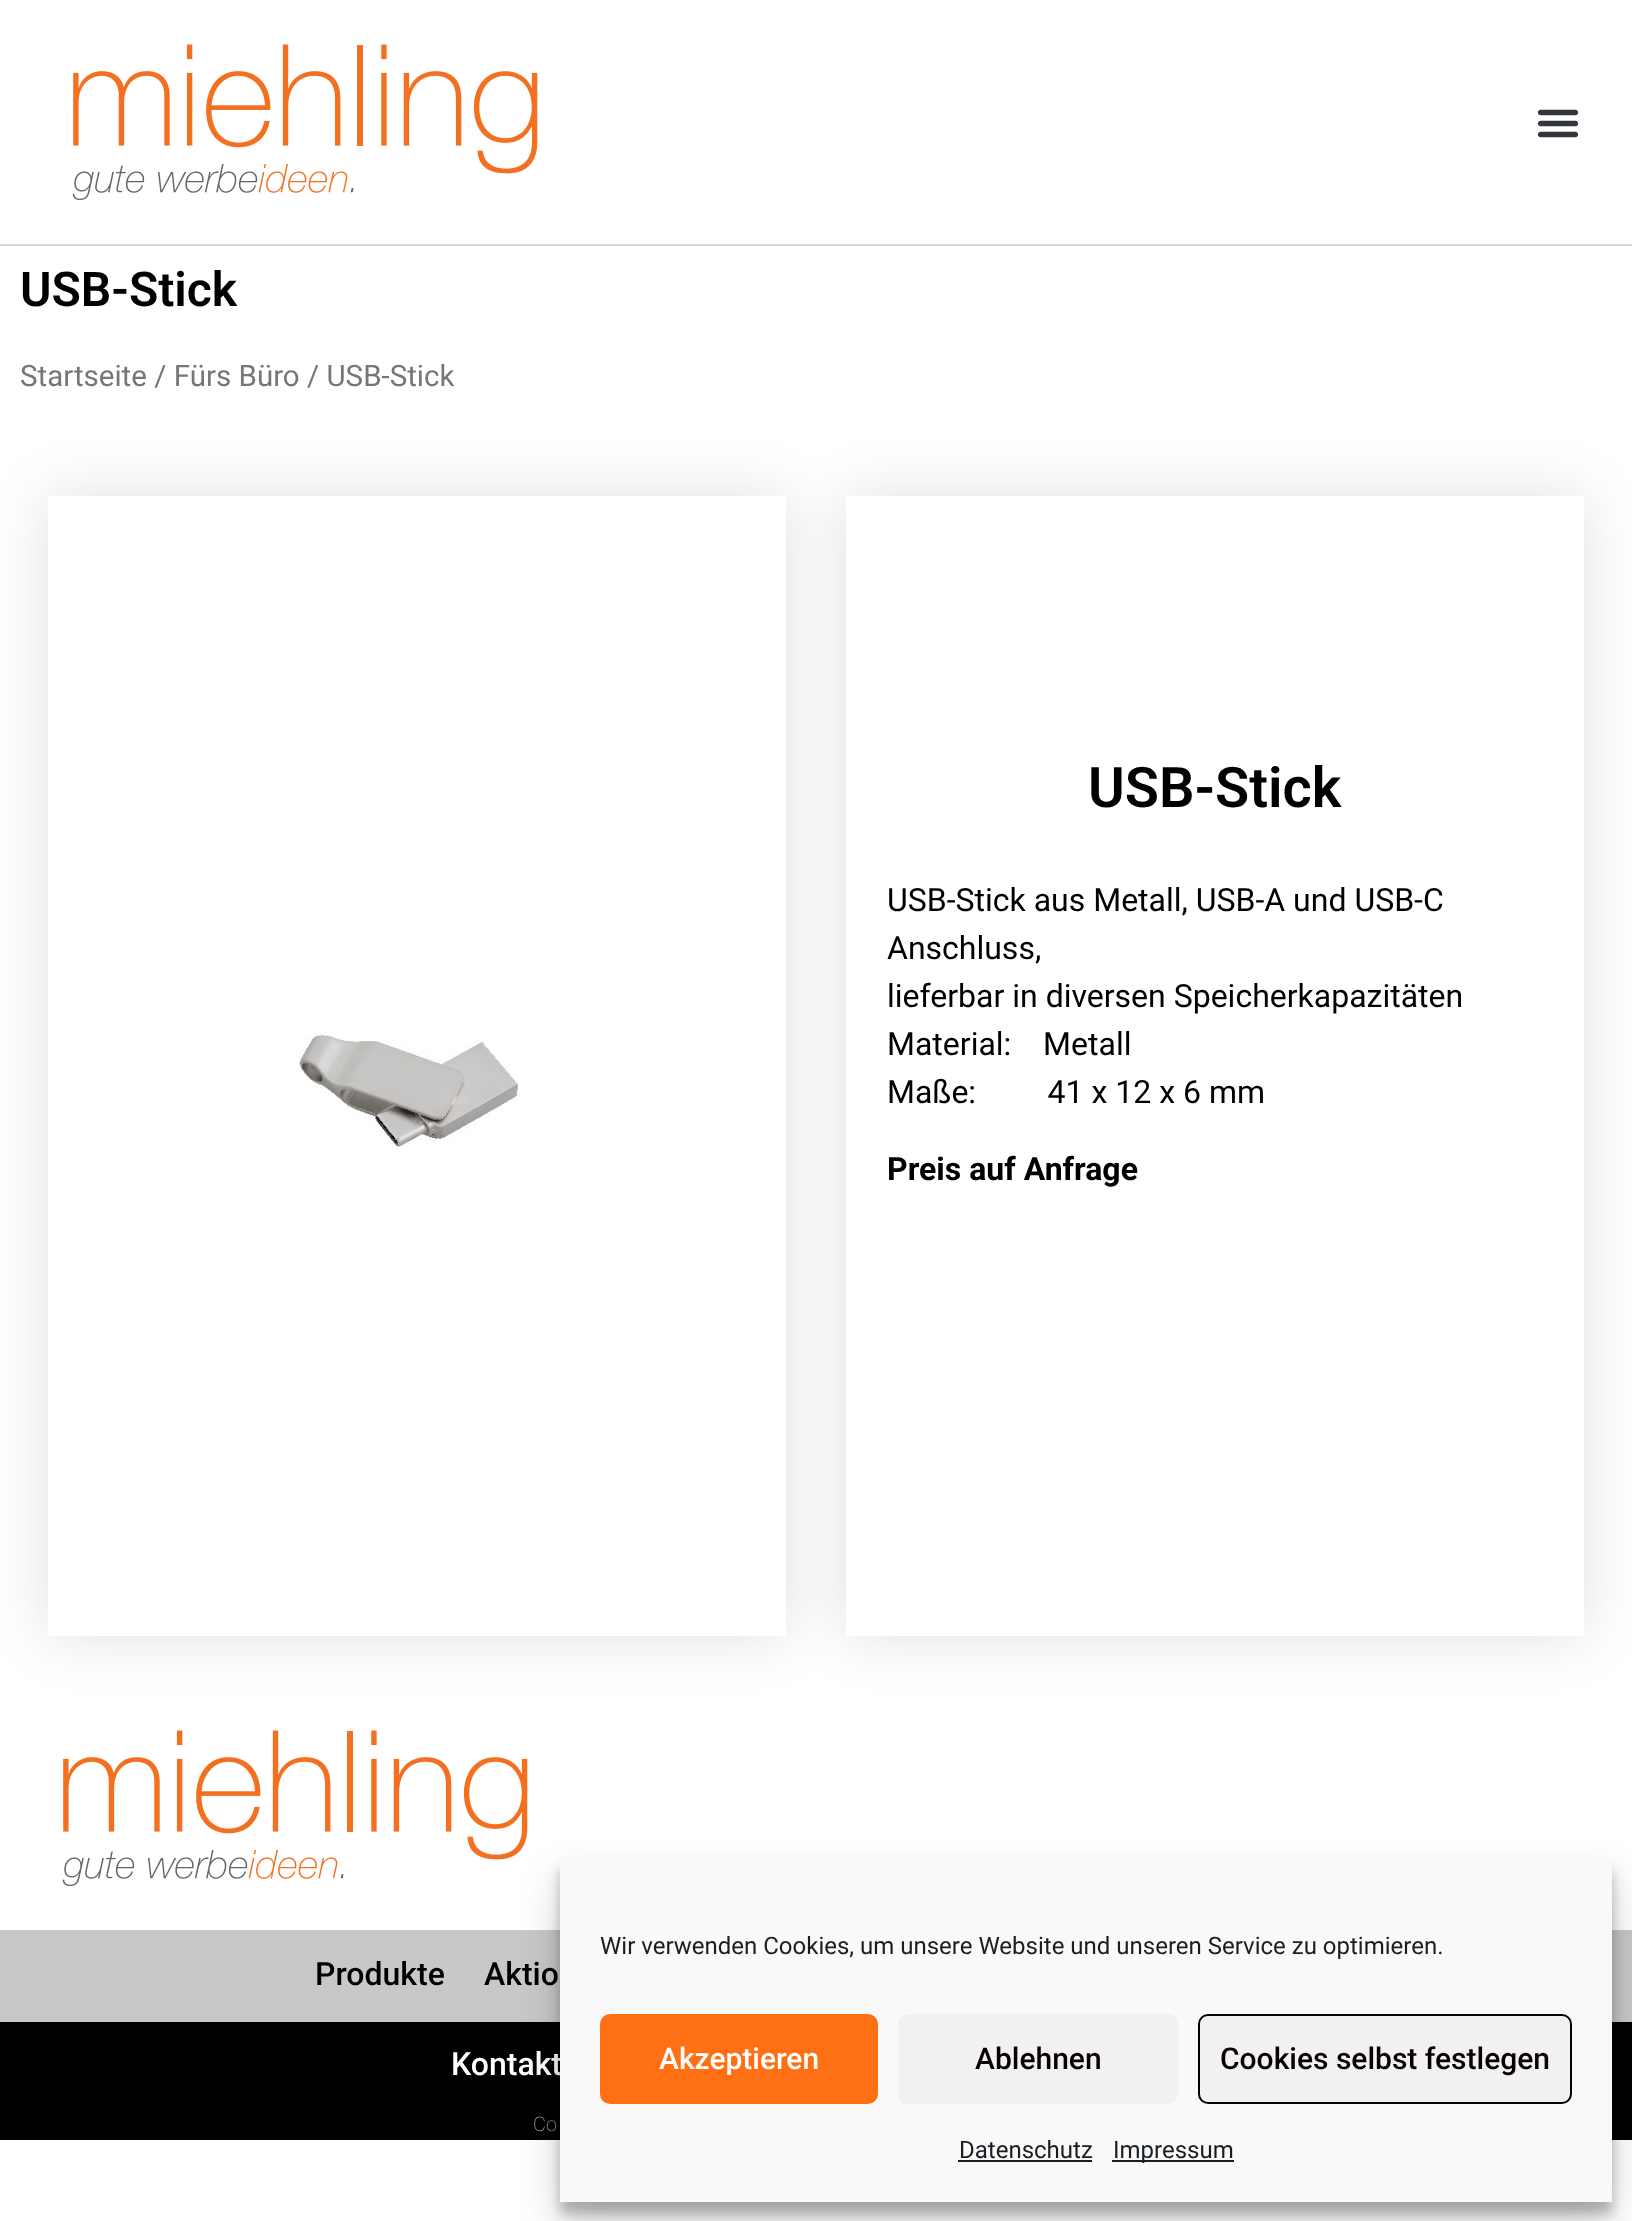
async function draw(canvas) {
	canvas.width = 1632;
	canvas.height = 2221;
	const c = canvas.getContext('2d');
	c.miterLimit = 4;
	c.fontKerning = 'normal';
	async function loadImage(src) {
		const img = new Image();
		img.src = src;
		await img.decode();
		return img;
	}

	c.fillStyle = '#fff';
	c.fillRect(0, 0, 1632, 2221);
	c.fillStyle = '#d6d6d6';
	c.fillRect(0, 244, 1632, 2);
	c.drawImage(await loadImage('img1.png'), 72, 44, 466, 156);
	c.drawImage(await loadImage('img2.png'), 1537, 109, 42, 29);
	c.font = '600 48px Roboto';
	c.fillStyle = '#000';
	c.fillText('USB-Stick', 20, 306);
	c.font = '29.5px Roboto';
	c.fillStyle = '#767676';
	c.fillText('Startseite / Fürs Büro / USB-Stick', 20, 386);
	c.save();
	c.beginPath();
	c.moveTo(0, 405);
	c.lineTo(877, 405);
	c.lineTo(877, 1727);
	c.lineTo(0, 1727);
	c.closePath();
	c.moveTo(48, 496);
	c.lineTo(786, 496);
	c.lineTo(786, 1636);
	c.lineTo(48, 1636);
	c.closePath();
	c.clip('evenodd');
	c.fillStyle = '#0000001f';
	c.filter = 'blur(30px)';
	c.beginPath();
	c.rect(48, 496, 738, 1140);
	c.fill();
	c.filter = 'none';
	c.restore();
	c.drawImage(await loadImage('img3.png'), 299, 1031, 219, 116);
	c.save();
	c.beginPath();
	c.moveTo(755, 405);
	c.lineTo(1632, 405);
	c.lineTo(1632, 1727);
	c.lineTo(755, 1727);
	c.closePath();
	c.moveTo(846, 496);
	c.lineTo(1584, 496);
	c.lineTo(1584, 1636);
	c.lineTo(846, 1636);
	c.closePath();
	c.clip('evenodd');
	c.fillStyle = '#0000001f';
	c.filter = 'blur(30px)';
	c.beginPath();
	c.rect(846, 496, 738, 1140);
	c.fill();
	c.filter = 'none';
	c.restore();
	c.font = '600 56px Roboto';
	c.fillStyle = '#000';
	c.fillText('USB-Stick', 1088, 807);
	c.font = '32px Roboto';
	for (const [text, x, y] of [
		['USB-Stick aus Metall, USB-A und USB-C', 887, 911],
		['Anschluss,', 887, 959],
		['lieferbar in diversen Speicherkapazitäten', 887, 1007],
		['Material:    Metall', 887, 1055],
		['Maße:         41 x 12 x 6 mm', 887, 1103],
	]) {
		c.fillText(text, x, y);
	}
	c.font = 'bold 32px Roboto';
	c.fillText('Preis auf Anfrage', 887, 1180);
	c.drawImage(await loadImage('img1.png'), 62, 1730, 466, 156);
	c.fillStyle = '#c8c8c8';
	c.fillRect(0, 1930, 1632, 92);
	c.font = '500 32px Roboto';
	c.fillStyle = '#000';
	c.fillText('Produkte', 315, 1985);
	c.fillText('Aktio', 484, 1985);
	c.fillRect(0, 2022, 1632, 118);
	c.fillStyle = '#fff';
	c.fillText('Kontakt', 451, 2075);
	c.font = '200 20px Roboto';
	c.fillStyle = '#9c9c9c';
	c.fillText('Co', 533, 2131);
	c.fillStyle = '#0000003b';
	c.filter = 'blur(6px)';
	c.beginPath();
	c.rect(560, 1870, 1052, 344);
	c.fill();
	c.filter = 'none';
	c.fillStyle = '#00000030';
	c.filter = 'blur(20px)';
	c.beginPath();
	c.rect(560, 1878, 1052, 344);
	c.fill();
	c.filter = 'none';
	c.fillStyle = '#f9f9f9';
	c.fillRect(560, 1858, 1052, 344);
	c.font = '24px Roboto';
	c.fillStyle = '#191e23';
	c.fillText('Wir verwenden Cookies, um unsere Website und unseren Service zu optimieren.', 600, 1954);
	c.fillStyle = '#ff7015';
	c.beginPath();
	c.roundRect(601, 2015, 276, 88, 9);
	c.fill();
	c.strokeStyle = '#ff7015';
	c.lineWidth = 2;
	c.stroke();
	c.font = '500 30px Roboto';
	c.fillStyle = '#fff';
	c.fillText('Akzeptieren', 659, 2069);
	c.fillStyle = '#f1f1f1';
	c.beginPath();
	c.roundRect(898, 2014, 280, 90, 10);
	c.fill();
	c.fillStyle = '#0a0000';
	c.fillText('Ablehnen', 975, 2069);
	c.fillStyle = '#f1f1f1';
	c.beginPath();
	c.roundRect(1199, 2015, 372, 88, 9);
	c.fill();
	c.strokeStyle = '#0a0000';
	c.stroke();
	c.fillStyle = '#0a0000';
	c.fillText('Cookies selbst festlegen', 1220, 2069);
	c.font = '24px Roboto';
	c.fillStyle = '#191e23';
	c.fillText('Datenschutz', 959, 2158);
	c.fillRect(958, 2160, 134, 2);
	c.fillRect(1112, 2160, 122, 2);
	c.fillText('Impressum', 1113, 2158);
}

draw(document.querySelector('canvas'));
